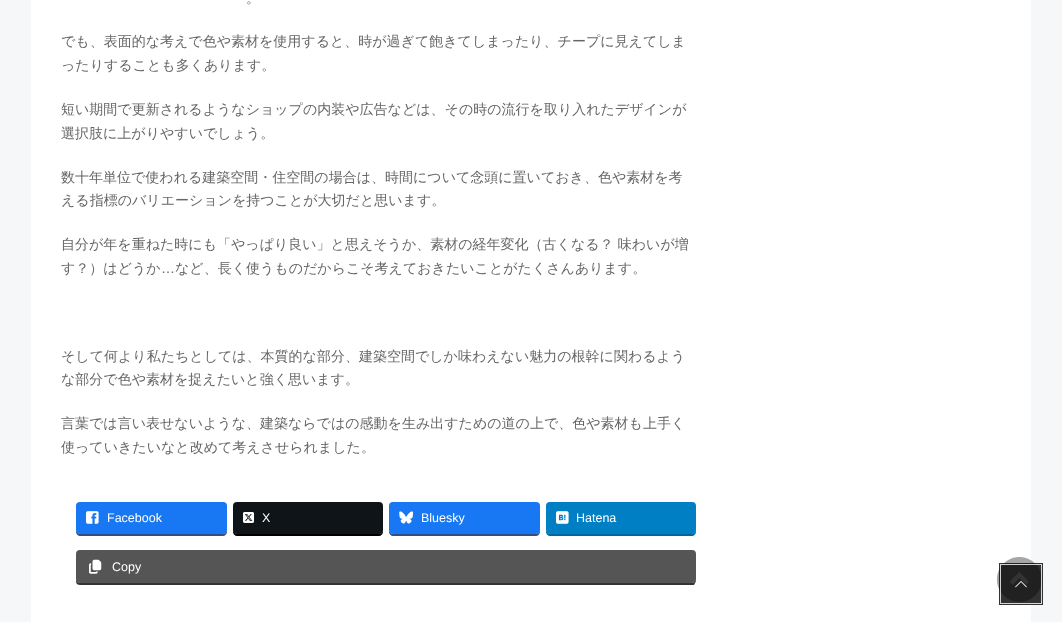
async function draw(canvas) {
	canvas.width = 1062;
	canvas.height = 622;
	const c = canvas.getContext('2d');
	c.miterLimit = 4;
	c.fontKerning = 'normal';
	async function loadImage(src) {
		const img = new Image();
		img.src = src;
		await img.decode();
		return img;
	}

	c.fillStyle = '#f6f7f8';
	c.fillRect(0, 0, 1062, 622);
	c.fillStyle = '#fff';
	c.fillRect(31, 0, 1000, 622);
	c.font = '500 14px WenQuanYi Zen Hei';
	c.fillStyle = '#666';
	for (const [text, x, y] of [
		['。', 246, 3],
		['でも、表面的な考えで色や素材を使用すると、時が過ぎて飽きてしまったり、チープに見えてしま', 61, 46],
		['ったりすることも多くあります。', 61, 70],
		['短い期間で更新されるようなショップの内装や広告などは、その時の流行を取り入れたデザインが', 61, 114],
		['選択肢に上がりやすいでしょう。', 61, 138],
		['数十年単位で使われる建築空間・住空間の場合は、時間について念頭に置いておき、色や素材を考', 61, 182],
		['える指標のバリエーションを持つことが大切だと思います。', 61, 205],
		['自分が年を重ねた時にも「やっぱり良い」と思えそうか、素材の経年変化（古くなる？ 味わいが増', 61, 249],
		['す？）はどうか', 61, 273],
	]) {
		c.fillText(text, x, y);
	}
	c.font = '14px Liberation Sans';
	c.fillText('…', 161, 273);
	c.font = '500 14px WenQuanYi Zen Hei';
	for (const [text, x, y] of [
		['など、長く使うものだからこそ考えておきたいことがたくさんあります。', 175, 273],
		['そして何より私たちとしては、本質的な部分、建築空間でしか味わえない魅力の根幹に関わるよう', 61, 361],
		['な部分で色や素材を捉えたいと強く思います。', 61, 384],
		['言葉では言い表せないような、建築ならではの感動を生み出すための道の上で、色や素材も上手く', 61, 428],
		['使っていきたいなと改めて考えさせられました。', 61, 452],
	]) {
		c.fillText(text, x, y);
	}
	c.fillStyle = '#344e84';
	c.beginPath();
	c.moveTo(76, 530);
	c.lineTo(76, 532);
	c.bezierCurveTo(76, 534, 78, 536, 80, 536);
	c.lineTo(223, 536);
	c.bezierCurveTo(225, 536, 227, 534, 227, 532);
	c.lineTo(227, 530);
	c.lineTo(226, 533);
	c.lineTo(223, 534);
	c.lineTo(80, 534);
	c.bezierCurveTo(78, 534, 76, 532, 76, 530);
	c.closePath();
	c.fill();
	c.fillStyle = '#1877f2';
	c.beginPath();
	c.roundRect(76, 502, 151, 32, 4);
	c.fill();
	c.drawImage(await loadImage('img1.png'), 86, 511, 13, 13);
	c.font = '12.5px Liberation Sans';
	c.fillStyle = '#fff';
	c.fillText('Facebook', 107, 522);
	c.fillStyle = '#000';
	c.beginPath();
	c.moveTo(233, 530);
	c.lineTo(233, 532);
	c.bezierCurveTo(233, 534, 235, 536, 237, 536);
	c.lineTo(379, 536);
	c.bezierCurveTo(381, 536, 383, 534, 383, 532);
	c.lineTo(383, 530);
	c.lineTo(382, 533);
	c.lineTo(379, 534);
	c.lineTo(237, 534);
	c.bezierCurveTo(235, 534, 233, 532, 233, 530);
	c.closePath();
	c.fill();
	c.fillStyle = '#0f1419';
	c.beginPath();
	c.roundRect(233, 502, 150, 32, 4);
	c.fill();
	c.drawImage(await loadImage('img2.png'), 243, 512, 12, 11);
	c.fillStyle = '#fff';
	c.fillText('X', 262, 522);
	c.fillStyle = '#344e84';
	c.beginPath();
	c.moveTo(389, 530);
	c.lineTo(389, 532);
	c.bezierCurveTo(389, 534, 391, 536, 393, 536);
	c.lineTo(536, 536);
	c.bezierCurveTo(538, 536, 540, 534, 540, 532);
	c.lineTo(540, 530);
	c.lineTo(539, 533);
	c.lineTo(536, 534);
	c.lineTo(393, 534);
	c.bezierCurveTo(391, 534, 389, 532, 389, 530);
	c.closePath();
	c.fill();
	c.fillStyle = '#1877f2';
	c.beginPath();
	c.roundRect(389, 502, 151, 32, 4);
	c.fill();
	c.drawImage(await loadImage('img3.png'), 399, 511, 14, 13);
	c.fillStyle = '#fff';
	c.fillText('Bluesky', 421, 522);
	c.fillStyle = '#00679f';
	c.beginPath();
	c.moveTo(546, 530);
	c.lineTo(546, 532);
	c.bezierCurveTo(546, 534, 548, 536, 550, 536);
	c.lineTo(692, 536);
	c.bezierCurveTo(694, 536, 696, 534, 696, 532);
	c.lineTo(696, 530);
	c.lineTo(695, 533);
	c.lineTo(692, 534);
	c.lineTo(550, 534);
	c.bezierCurveTo(548, 534, 546, 532, 546, 530);
	c.closePath();
	c.fill();
	c.fillStyle = '#007fc5';
	c.beginPath();
	c.roundRect(546, 502, 150, 32, 4);
	c.fill();
	c.drawImage(await loadImage('img4.png'), 556, 511, 13, 13);
	c.fillStyle = '#fff';
	c.fillText('Hatena', 576, 522);
	c.fillStyle = '#333';
	c.beginPath();
	c.moveTo(76, 579);
	c.bezierCurveTo(76, 582, 76, 585, 80, 585);
	c.lineTo(694, 585);
	c.lineTo(695, 583);
	c.bezierCurveTo(696, 582, 696, 580, 696, 579);
	c.bezierCurveTo(696, 581, 694, 583, 692, 583);
	c.lineTo(80, 583);
	c.bezierCurveTo(78, 583, 76, 581, 76, 579);
	c.closePath();
	c.fill();
	c.fillStyle = '#555';
	c.beginPath();
	c.roundRect(76, 550, 620, 33, 4);
	c.fill();
	c.drawImage(await loadImage('img5.png'), 89, 559, 13, 15);
	c.fillStyle = '#fff';
	c.fillText('Copy', 112, 571);
	c.drawImage(await loadImage('img6.png'), 997, 557, 45, 45);
	c.strokeStyle = '#000000cc';
	c.lineWidth = 2;
	c.strokeRect(1000, 564, 42, 40);
	c.strokeStyle = '#ffffffcc';
	c.lineWidth = 1;
	c.strokeRect(1000.5, 564.5, 41, 39);
	c.fillStyle = '#000000cc';
	c.fillRect(1001, 565, 40, 38);
	c.drawImage(await loadImage('img7.png'), 1015, 581, 12, 7);
}

draw(document.querySelector('canvas'));
